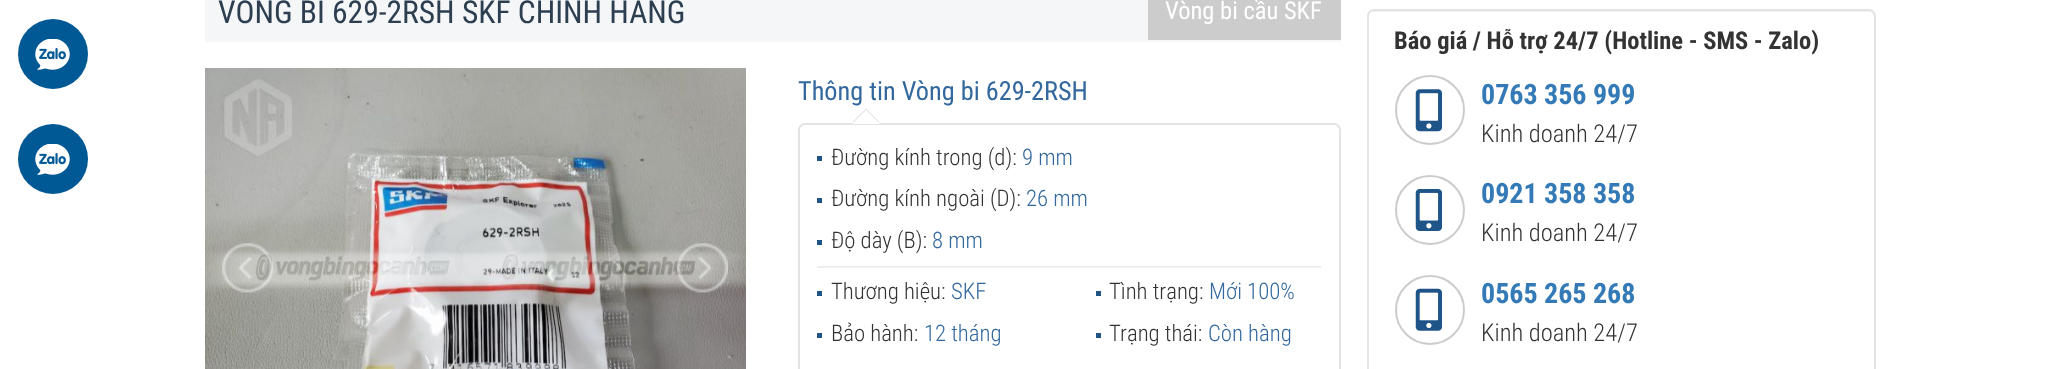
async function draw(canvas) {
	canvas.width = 2052;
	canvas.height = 369;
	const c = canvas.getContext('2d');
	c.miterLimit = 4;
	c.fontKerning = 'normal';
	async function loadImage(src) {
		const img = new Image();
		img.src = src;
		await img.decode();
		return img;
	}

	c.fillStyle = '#fff';
	c.fillRect(0, 0, 2052, 369);
	c.fillStyle = '#005995';
	c.beginPath();
	c.arc(53, 54, 35, 0, 2 * Math.PI);
	c.fill();
	c.drawImage(await loadImage('img1.png'), 35, 39, 35, 31);
	c.beginPath();
	c.arc(53, 159, 35, 0, 2 * Math.PI);
	c.fill();
	c.drawImage(await loadImage('img1.png'), 35, 144, 35, 31);
	c.fillStyle = '#f4f6f8';
	c.fillRect(205, 0, 1136, 42);
	c.font = '31.5px Roboto Condensed';
	c.fillStyle = '#2c3e50';
	c.fillText('VÒNG BI 629-2RSH SKF CHÍNH HÃNG', 218, 23);
	c.fillStyle = '#ccc';
	c.fillRect(1148, 0, 193, 40);
	c.font = '24.5px Roboto Condensed';
	c.fillStyle = '#fff';
	c.fillText('Vòng bi cầu SKF', 1165, 19);
	c.drawImage(await loadImage('img2.png'), 205, 68, 541, 301);
	c.drawImage(await loadImage('img3.png'), 222, 243, 52, 50);
	c.drawImage(await loadImage('img4.png'), 677, 243, 51, 50);
	c.font = '26.25px Roboto Condensed';
	c.fillStyle = '#32689d';
	c.fillText('Thông tin Vòng bi 629-2RSH', 798, 100);
	c.beginPath();
	c.roundRect(799, 124, 541, 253, 6);
	c.strokeStyle = '#e3e3e3';
	c.lineWidth = 2;
	c.stroke();
	c.fillStyle = '#e3e3e3';
	c.beginPath();
	c.moveTo(880, 122.5);
	c.lineTo(852, 122.5);
	c.lineTo(866, 108.5);
	c.closePath();
	c.fill();
	c.fillStyle = '#fff';
	c.beginPath();
	c.moveTo(880, 124);
	c.lineTo(852, 124);
	c.lineTo(866, 110);
	c.closePath();
	c.fill();
	c.fillStyle = '#1f5489';
	c.fillRect(817, 156, 5, 5);
	c.font = '300 22.75px Roboto Condensed';
	c.fillStyle = '#333';
	c.fillText('Đường kính trong (d):', 831, 165);
	c.fillStyle = '#32689d';
	c.fillText('9 mm', 1022, 165);
	c.fillStyle = '#1f5489';
	c.fillRect(817, 198, 5, 5);
	c.fillStyle = '#333';
	c.fillText('Đường kính ngoài (D):', 831, 206);
	c.fillStyle = '#32689d';
	c.fillText('26 mm', 1026, 206);
	c.fillStyle = '#1f5489';
	c.fillRect(817, 240, 5, 5);
	c.fillStyle = '#333';
	c.fillText('Độ dày (B):', 831, 248);
	c.fillStyle = '#32689d';
	c.fillText('8 mm', 932, 248);
	c.fillStyle = '#eee';
	c.fillRect(817, 266, 504, 2);
	c.fillStyle = '#1f5489';
	c.fillRect(817, 291, 5, 5);
	c.fillStyle = '#333';
	c.fillText('Thương hiệu:', 831, 299);
	c.fillStyle = '#32689d';
	c.fillText('SKF', 951, 299);
	c.fillStyle = '#1f5489';
	c.fillRect(1096, 291, 5, 5);
	c.fillStyle = '#333';
	c.fillText('Tình trạng:', 1109, 299);
	c.fillStyle = '#32689d';
	c.fillText('Mới 100%', 1209, 299);
	c.fillStyle = '#1f5489';
	c.fillRect(817, 333, 5, 5);
	c.fillStyle = '#333';
	c.fillText('Bảo hành:', 831, 341);
	c.fillStyle = '#32689d';
	c.fillText('12 tháng', 924, 341);
	c.fillStyle = '#1f5489';
	c.fillRect(1096, 333, 5, 5);
	c.fillStyle = '#333';
	c.fillText('Trạng thái:', 1109, 341);
	c.fillStyle = '#32689d';
	c.fillText('Còn hàng', 1208, 341);
	c.fillStyle = '#f2f2f2';
	c.beginPath();
	c.moveTo(1374, 12);
	c.lineTo(1869, 12);
	c.bezierCurveTo(1872, 12, 1874, 15, 1874, 18);
	c.lineTo(1874, 16);
	c.bezierCurveTo(1874, 13, 1872, 11, 1869, 11);
	c.lineTo(1374, 11);
	c.bezierCurveTo(1372, 11, 1370, 13, 1369, 15);
	c.bezierCurveTo(1370, 13, 1372, 12, 1374, 12);
	c.closePath();
	c.fill();
	c.beginPath();
	c.roundRect(1368, 10, 507, 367, 6);
	c.stroke();
	c.font = 'bold 24.5px Roboto Condensed';
	c.fillStyle = '#333';
	c.fillText('Báo giá / Hỗ trợ 24/7 (Hotline - SMS - Zalo)', 1394, 49);
	c.beginPath();
	c.arc(1430, 110, 34, 0, 2 * Math.PI);
	c.strokeStyle = '#ccc';
	c.stroke();
	c.drawImage(await loadImage('img5.png'), 1415, 89, 27, 43);
	c.font = 'bold 28px Roboto Condensed';
	c.fillStyle = '#337ab7';
	c.fillText('0763 356 999', 1481, 104);
	c.font = '300 24.5px Roboto Condensed';
	c.fillStyle = '#333';
	c.fillText('Kinh doanh 24/7', 1481, 142);
	c.beginPath();
	c.arc(1430, 210, 34, 0, 2 * Math.PI);
	c.stroke();
	c.drawImage(await loadImage('img6.png'), 1415, 189, 27, 42);
	c.font = 'bold 28px Roboto Condensed';
	c.fillStyle = '#337ab7';
	c.fillText('0921 358 358', 1481, 203);
	c.font = '300 24.5px Roboto Condensed';
	c.fillStyle = '#333';
	c.fillText('Kinh doanh 24/7', 1481, 241);
	c.beginPath();
	c.arc(1430, 310, 34, 0, 2 * Math.PI);
	c.stroke();
	c.drawImage(await loadImage('img7.png'), 1415, 288, 27, 43);
	c.font = 'bold 28px Roboto Condensed';
	c.fillStyle = '#337ab7';
	c.fillText('0565 265 268', 1481, 303);
	c.font = '300 24.5px Roboto Condensed';
	c.fillStyle = '#333';
	c.fillText('Kinh doanh 24/7', 1481, 341);
}

draw(document.querySelector('canvas'));
